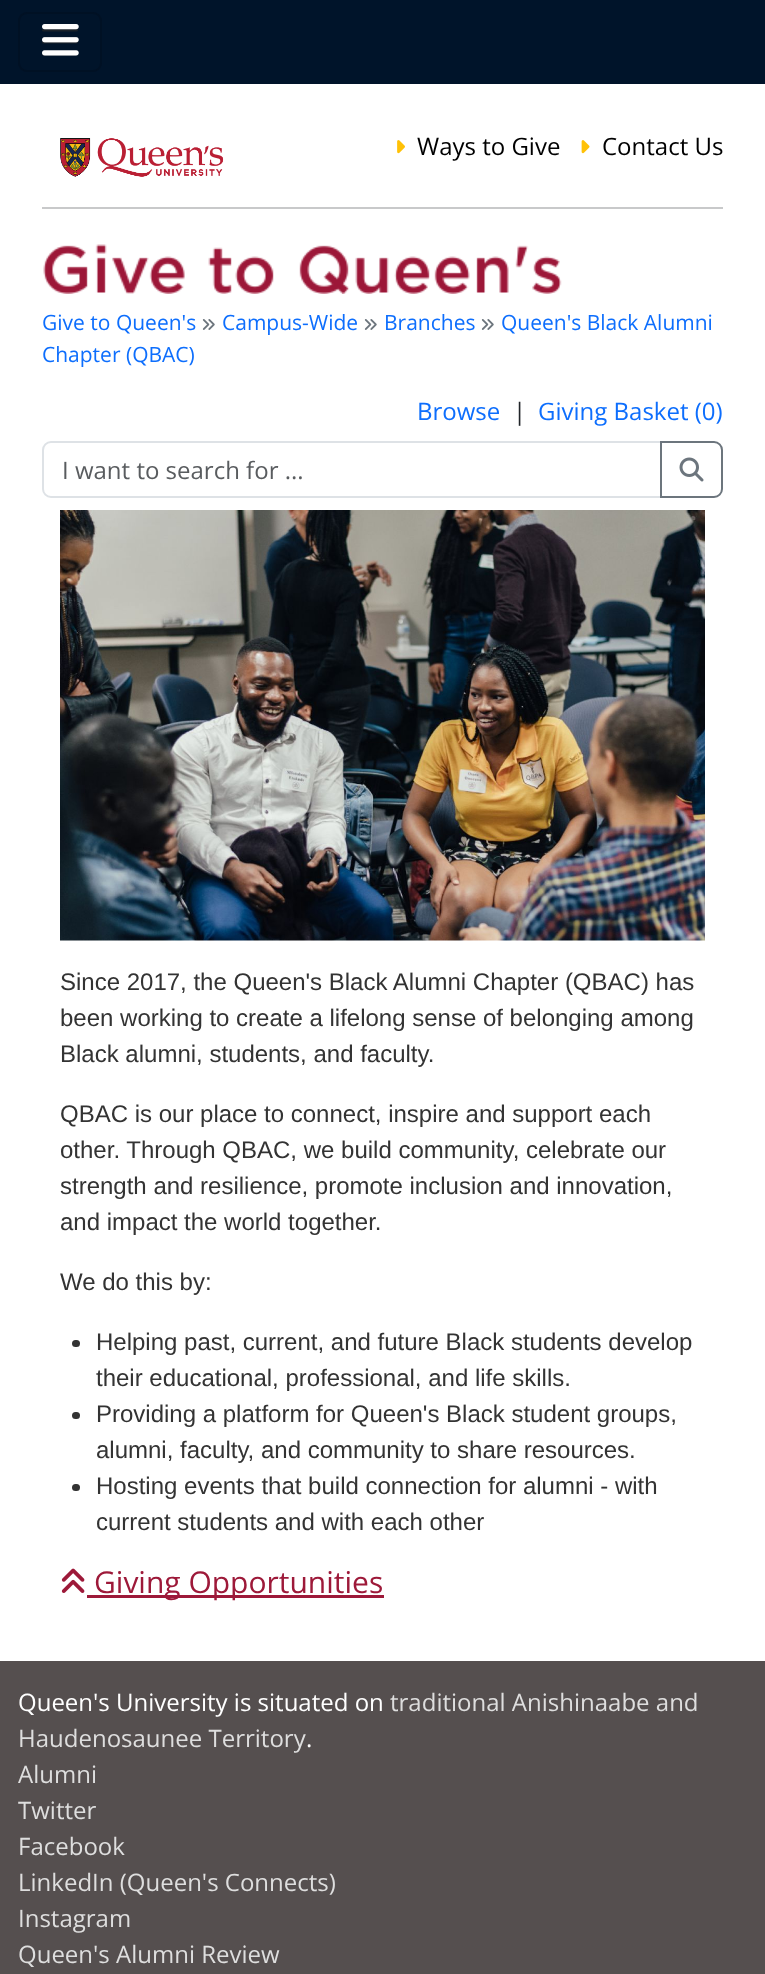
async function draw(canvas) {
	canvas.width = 765;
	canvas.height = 1974;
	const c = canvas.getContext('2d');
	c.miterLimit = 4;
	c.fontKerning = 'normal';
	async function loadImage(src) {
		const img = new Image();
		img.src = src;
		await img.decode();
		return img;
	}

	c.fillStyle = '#fff';
	c.fillRect(0, 0, 765, 1974);
	c.fillStyle = '#00142a';
	c.fillRect(0, 0, 765, 84);
	c.beginPath();
	c.roundRect(19, 13, 82, 58, 8);
	c.strokeStyle = '#001124';
	c.lineWidth = 2;
	c.stroke();
	c.beginPath();
	c.moveTo(43.5, 30);
	c.lineTo(76.5, 30);
	c.moveTo(43.5, 42);
	c.lineTo(76.5, 42);
	c.moveTo(43.5, 54);
	c.lineTo(76.5, 54);
	c.strokeStyle = '#192129';
	c.lineWidth = 3;
	c.lineCap = 'round';
	c.stroke();
	c.drawImage(await loadImage('img1.png'), 42, 24, 37, 32);
	c.drawImage(await loadImage('img2.png'), 60, 138, 164, 39);
	c.drawImage(await loadImage('img3.png'), 397, 140, 8, 14);
	c.font = '24px Open Sans';
	c.fillStyle = '#000';
	c.fillText('Ways to Give', 417, 155);
	c.drawImage(await loadImage('img4.png'), 581, 140, 9, 14);
	c.fillText('Contact Us', 602, 155);
	c.fillStyle = '#c8c9ca';
	c.fillRect(42, 207, 681, 2);
	c.drawImage(await loadImage('img5.png'), 43, 244, 519, 50);
	c.font = '21px Open Sans';
	c.fillStyle = '#0d6efd';
	c.fillText('Give to Queen\'s', 42, 330);
	c.drawImage(await loadImage('img6.png'), 202, 319, 13, 11);
	c.fillText('Campus-Wide', 222, 330);
	c.drawImage(await loadImage('img6.png'), 364, 319, 13, 11);
	c.fillText('Branches', 384, 330);
	c.drawImage(await loadImage('img6.png'), 481, 319, 13, 11);
	c.fillText('Queen\'s Black Alumni', 501, 330);
	c.fillText('Chapter (QBAC)', 42, 362);
	c.font = '24px Open Sans';
	c.fillText('Browse', 417, 420);
	c.fillStyle = '#212529';
	c.fillText('|', 513, 420);
	c.fillStyle = '#0d6efd';
	c.fillText('Giving Basket (0)', 538, 420);
	c.beginPath();
	c.roundRect(43, 442, 618, 55, [8, 0, 0, 8]);
	c.strokeStyle = '#dee2e6';
	c.lineWidth = 2;
	c.stroke();
	c.fillStyle = '#595c5f';
	c.fillText('I want to search for ...', 62, 479);
	c.beginPath();
	c.roundRect(661, 442, 61, 55, [0, 8, 8, 0]);
	c.strokeStyle = '#6c757d';
	c.stroke();
	c.drawImage(await loadImage('img7.png'), 679, 457, 25, 25);
	c.drawImage(await loadImage('img8.png'), 60, 510, 645, 431);
	c.font = '24px Liberation Sans';
	c.fillStyle = '#333';
	for (const [text, x, y] of [
		['Since 2017, the Queen\'s Black Alumni Chapter (QBAC) has', 60, 990],
		['been working to create a lifelong sense of belonging among', 60, 1026],
		['Black alumni, students, and faculty.', 60, 1062],
		['QBAC is our place to connect, inspire and support each', 60, 1122],
		['other. Through QBAC, we build community, celebrate our', 60, 1158],
		['strength and resilience, promote inclusion and innovation,', 60, 1194],
		['and impact the world together.', 60, 1230],
		['We do this by:', 60, 1290],
	]) {
		c.fillText(text, x, y);
	}
	c.beginPath();
	c.roundRect(72, 1340, 8, 7, 3.5);
	c.fill();
	c.fillText('Helping past, current, and future Black students develop', 96, 1350);
	c.fillText('their educational, professional, and life skills.', 96, 1386);
	c.beginPath();
	c.roundRect(72, 1412, 8, 7, 3.5);
	c.fill();
	c.fillText('Providing a platform for Queen\'s Black student groups,', 96, 1422);
	c.fillText('alumni, faculty, and community to share resources.', 96, 1458);
	c.beginPath();
	c.roundRect(72, 1484, 8, 7, 3.5);
	c.fill();
	c.fillText('Hosting events that build connection for alumni - with', 96, 1494);
	c.fillText('current students and with each other', 96, 1530);
	c.drawImage(await loadImage('img9.png'), 61, 1568, 24, 25);
	c.fillStyle = '#9d1939';
	c.fillRect(87, 1595, 297, 3);
	c.font = '30px Open Sans';
	c.fillText('Giving Opportunities', 94, 1593);
	c.fillStyle = '#554f4f';
	c.fillRect(0, 1661, 765, 313);
	c.font = '24px Open Sans';
	c.fillStyle = '#fff';
	c.fillText('Queen\'s University is situated on', 18, 1711);
	c.fillStyle = '#dedede';
	c.fillText('traditional Anishinaabe and', 390, 1711);
	c.fillText('Haudenosaunee Territory', 18, 1747);
	c.fillStyle = '#fff';
	c.fillText('.', 306, 1747);
	c.fillStyle = '#dedede';
	for (const [text, x, y] of [
		['Alumni', 18, 1783],
		['Twitter', 18, 1819],
		['Facebook', 18, 1855],
		['LinkedIn (Queen\'s Connects)', 18, 1891],
		['Instagram', 18, 1927],
		['Queen\'s Alumni Review', 18, 1963],
	]) {
		c.fillText(text, x, y);
	}
}

draw(document.querySelector('canvas'));
